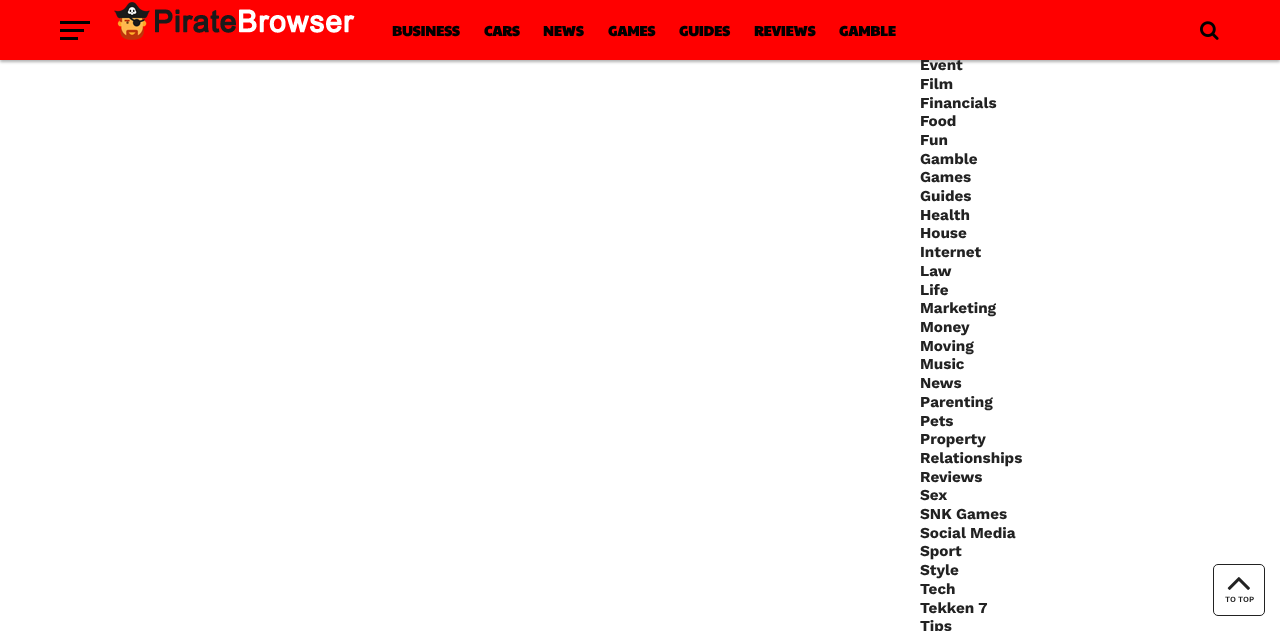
async function draw(canvas) {
	canvas.width = 1280;
	canvas.height = 631;
	const c = canvas.getContext('2d');
	c.miterLimit = 4;
	c.fontKerning = 'normal';
	async function loadImage(src) {
		const img = new Image();
		img.src = src;
		await img.decode();
		return img;
	}

	c.fillStyle = '#fff';
	c.fillRect(0, 0, 1280, 631);
	c.fillStyle = '#0000004d';
	c.filter = 'blur(1.5px)';
	c.beginPath();
	c.rect(0, 2, 1280, 60);
	c.fill();
	c.filter = 'none';
	for (const [x, y, w, h, color] of [
		[0, 0, 1280, 60, '#f00'],
		[60, 21, 30, 3, '#000'],
		[60, 29, 24, 3, '#000'],
		[60, 37, 18, 3, '#000'],
	]) {
		c.fillStyle = color;
		c.fillRect(x, y, w, h);
	}
	c.drawImage(await loadImage('img1.png'), 114, 2, 241, 38);
	c.font = 'bold 14px Paytone One';
	for (const [text, x, y] of [
		['BUSINESS', 392, 36],
		['CARS', 484, 36],
		['NEWS', 543, 36],
		['GAMES', 608, 36],
		['GUIDES', 679, 36],
		['REVIEWS', 754, 36],
		['GAMBLE', 839, 36],
	]) {
		c.fillText(text, x, y);
	}
	c.drawImage(await loadImage('img2.png'), 1200, 21, 19, 19);
	c.font = 'bold 15.25px Work Sans';
	c.fillStyle = '#222';
	for (const [text, x, y] of [
		['Event', 920, 70],
		['Film', 920, 89],
		['Financials', 920, 108],
		['Food', 920, 126],
		['Fun', 920, 145],
		['Gamble', 920, 164],
		['Games', 920, 182],
		['Guides', 920, 201],
		['Health', 920, 220],
		['House', 920, 238],
		['Internet', 920, 257],
		['Law', 920, 276],
		['Life', 920, 295],
		['Marketing', 920, 313],
		['Money', 920, 332],
		['Moving', 920, 351],
		['Music', 920, 369],
		['News', 920, 388],
		['Parenting', 920, 407],
		['Pets', 920, 426],
		['Property', 920, 444],
		['Relationships', 920, 463],
		['Reviews', 920, 482],
		['Sex', 920, 500],
		['SNK Games', 920, 519],
		['Social Media', 920, 538],
		['Sport', 920, 556],
		['Style', 920, 575],
		['Tech', 920, 594],
		['Tekken 7', 920, 613],
		['Tips', 920, 631],
	]) {
		c.fillText(text, x, y);
	}
	c.beginPath();
	c.roundRect(1213.5, 564.5, 51, 51, 4.5);
	c.strokeStyle = '#222';
	c.stroke();
	c.drawImage(await loadImage('img3.png'), 1227, 577, 23, 13);
	c.font = '600 8px Work Sans';
	c.fillText('TO TOP', 1225, 602);
}

draw(document.querySelector('canvas'));
